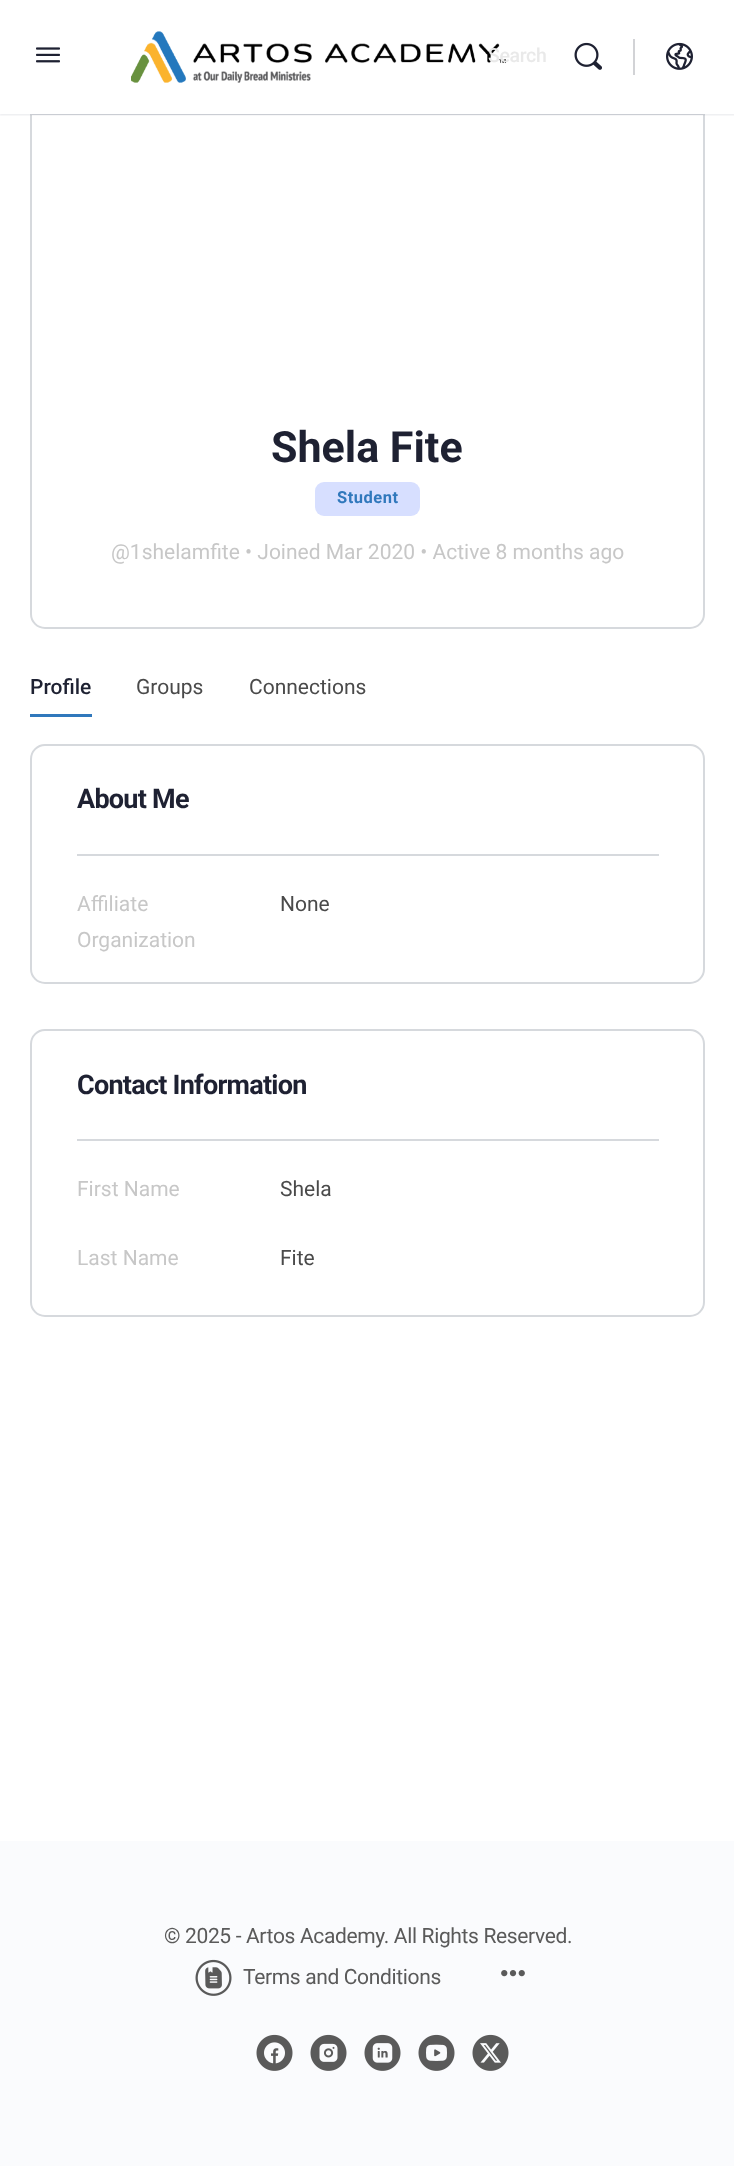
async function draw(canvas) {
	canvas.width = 734;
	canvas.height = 2166;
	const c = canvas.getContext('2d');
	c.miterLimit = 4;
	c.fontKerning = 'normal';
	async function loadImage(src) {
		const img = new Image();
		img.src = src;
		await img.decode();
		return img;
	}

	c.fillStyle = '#fff';
	c.fillRect(0, 0, 734, 2166);
	c.beginPath();
	c.roundRect(31, 114, 673, 514, [0, 0, 14, 14]);
	c.strokeStyle = '#d6d9dd';
	c.lineWidth = 2;
	c.stroke();
	c.fillStyle = '#41476c26';
	c.filter = 'blur(1px)';
	c.beginPath();
	c.rect(0, 0, 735, 114);
	c.fill();
	c.filter = 'none';
	c.fillStyle = '#8b8d9d0d';
	c.fillRect(0, 114, 734, 2);
	c.fillStyle = '#fff';
	c.fillRect(0, 0, 734, 114);
	c.drawImage(await loadImage('img1.png'), 36, 47, 24, 16);
	c.drawImage(await loadImage('img2.png'), 131, 31, 375, 52);
	c.letterSpacing = '-0.35px';
	c.font = '500 19.5px Roboto';
	c.fillStyle = '#e9e9e9';
	c.fillText('Search', 488, 62);
	c.drawImage(await loadImage('img3.png'), 574, 42, 28, 28);
	c.fillStyle = '#d2d3d6';
	c.fillRect(633, 39, 2, 36);
	c.drawImage(await loadImage('img4.png'), 666, 42, 27, 28);
	c.letterSpacing = '0px';
	c.font = 'bold 43px Roboto';
	c.fillStyle = '#1e2132';
	c.fillText('Shela Fite', 271, 462);
	c.fillStyle = '#d7dfff';
	c.beginPath();
	c.roundRect(315, 482, 105, 34, 9);
	c.fill();
	c.letterSpacing = '0.5px';
	c.font = 'bold 16.5px Roboto';
	c.fillStyle = '#3078bc';
	c.fillText('Student', 337, 503);
	c.letterSpacing = '0px';
	c.font = '21px Roboto';
	c.fillStyle = '#c7c7c7';
	c.fillText('@1shelamfite • Joined Mar 2020 • Active 8 months ago', 111, 559);
	c.font = '500 21px Roboto';
	c.fillStyle = '#1e2132';
	c.fillText('Profile', 30, 694);
	c.fillStyle = '#3078bc';
	c.fillRect(30, 714, 62, 3);
	c.font = '21px Roboto';
	c.fillStyle = '#4a4a4a';
	c.fillText('Groups', 136, 694);
	c.fillText('Connections', 249, 694);
	c.beginPath();
	c.roundRect(31, 745, 673, 238, 14);
	c.stroke();
	c.fillStyle = '#d6d9dd';
	c.fillRect(77, 854, 582, 2);
	c.letterSpacing = '-0.75px';
	c.font = 'bold 27px Roboto';
	c.fillStyle = '#1e2132';
	c.fillText('About Me', 77, 808);
	c.letterSpacing = '0px';
	c.font = '21px Roboto';
	c.fillStyle = '#c7c7c7';
	c.fillText('Affiliate', 77, 911);
	c.fillText('Organization', 77, 947);
	c.fillStyle = '#4a4a4a';
	c.fillText('None', 280, 911);
	c.beginPath();
	c.roundRect(31, 1030, 673, 286, 14);
	c.stroke();
	c.fillStyle = '#d6d9dd';
	c.fillRect(77, 1139, 582, 2);
	c.letterSpacing = '-0.75px';
	c.font = 'bold 27px Roboto';
	c.fillStyle = '#1e2132';
	c.fillText('Contact Information', 77, 1094);
	c.letterSpacing = '0px';
	c.font = '21px Roboto';
	c.fillStyle = '#c7c7c7';
	c.fillText('First Name', 77, 1196);
	c.fillStyle = '#4a4a4a';
	c.fillText('Shela', 280, 1196);
	c.fillStyle = '#c7c7c7';
	c.fillText('Last Name', 77, 1265);
	c.fillStyle = '#4a4a4a';
	c.fillText('Fite', 280, 1265);
	c.fillStyle = '#fafbfd';
	c.fillRect(0, 1841, 734, 325);
	c.letterSpacing = '-0.35px';
	c.fillStyle = '#5a5a5a';
	c.fillText('© 2025 - Artos Academy. All Rights Reserved.', 164, 1943);
	c.drawImage(await loadImage('img5.png'), 195, 1959, 37, 37);
	c.fillText('Terms and Conditions', 243, 1984);
	c.drawImage(await loadImage('img6.png'), 501, 1970, 24, 7);
	c.drawImage(await loadImage('img7.png'), 256, 2034, 37, 37);
	c.drawImage(await loadImage('img8.png'), 310, 2034, 37, 37);
	c.drawImage(await loadImage('img9.png'), 364, 2034, 37, 37);
	c.drawImage(await loadImage('img10.png'), 418, 2034, 37, 37);
	c.drawImage(await loadImage('img11.png'), 472, 2034, 37, 37);
}

draw(document.querySelector('canvas'));
